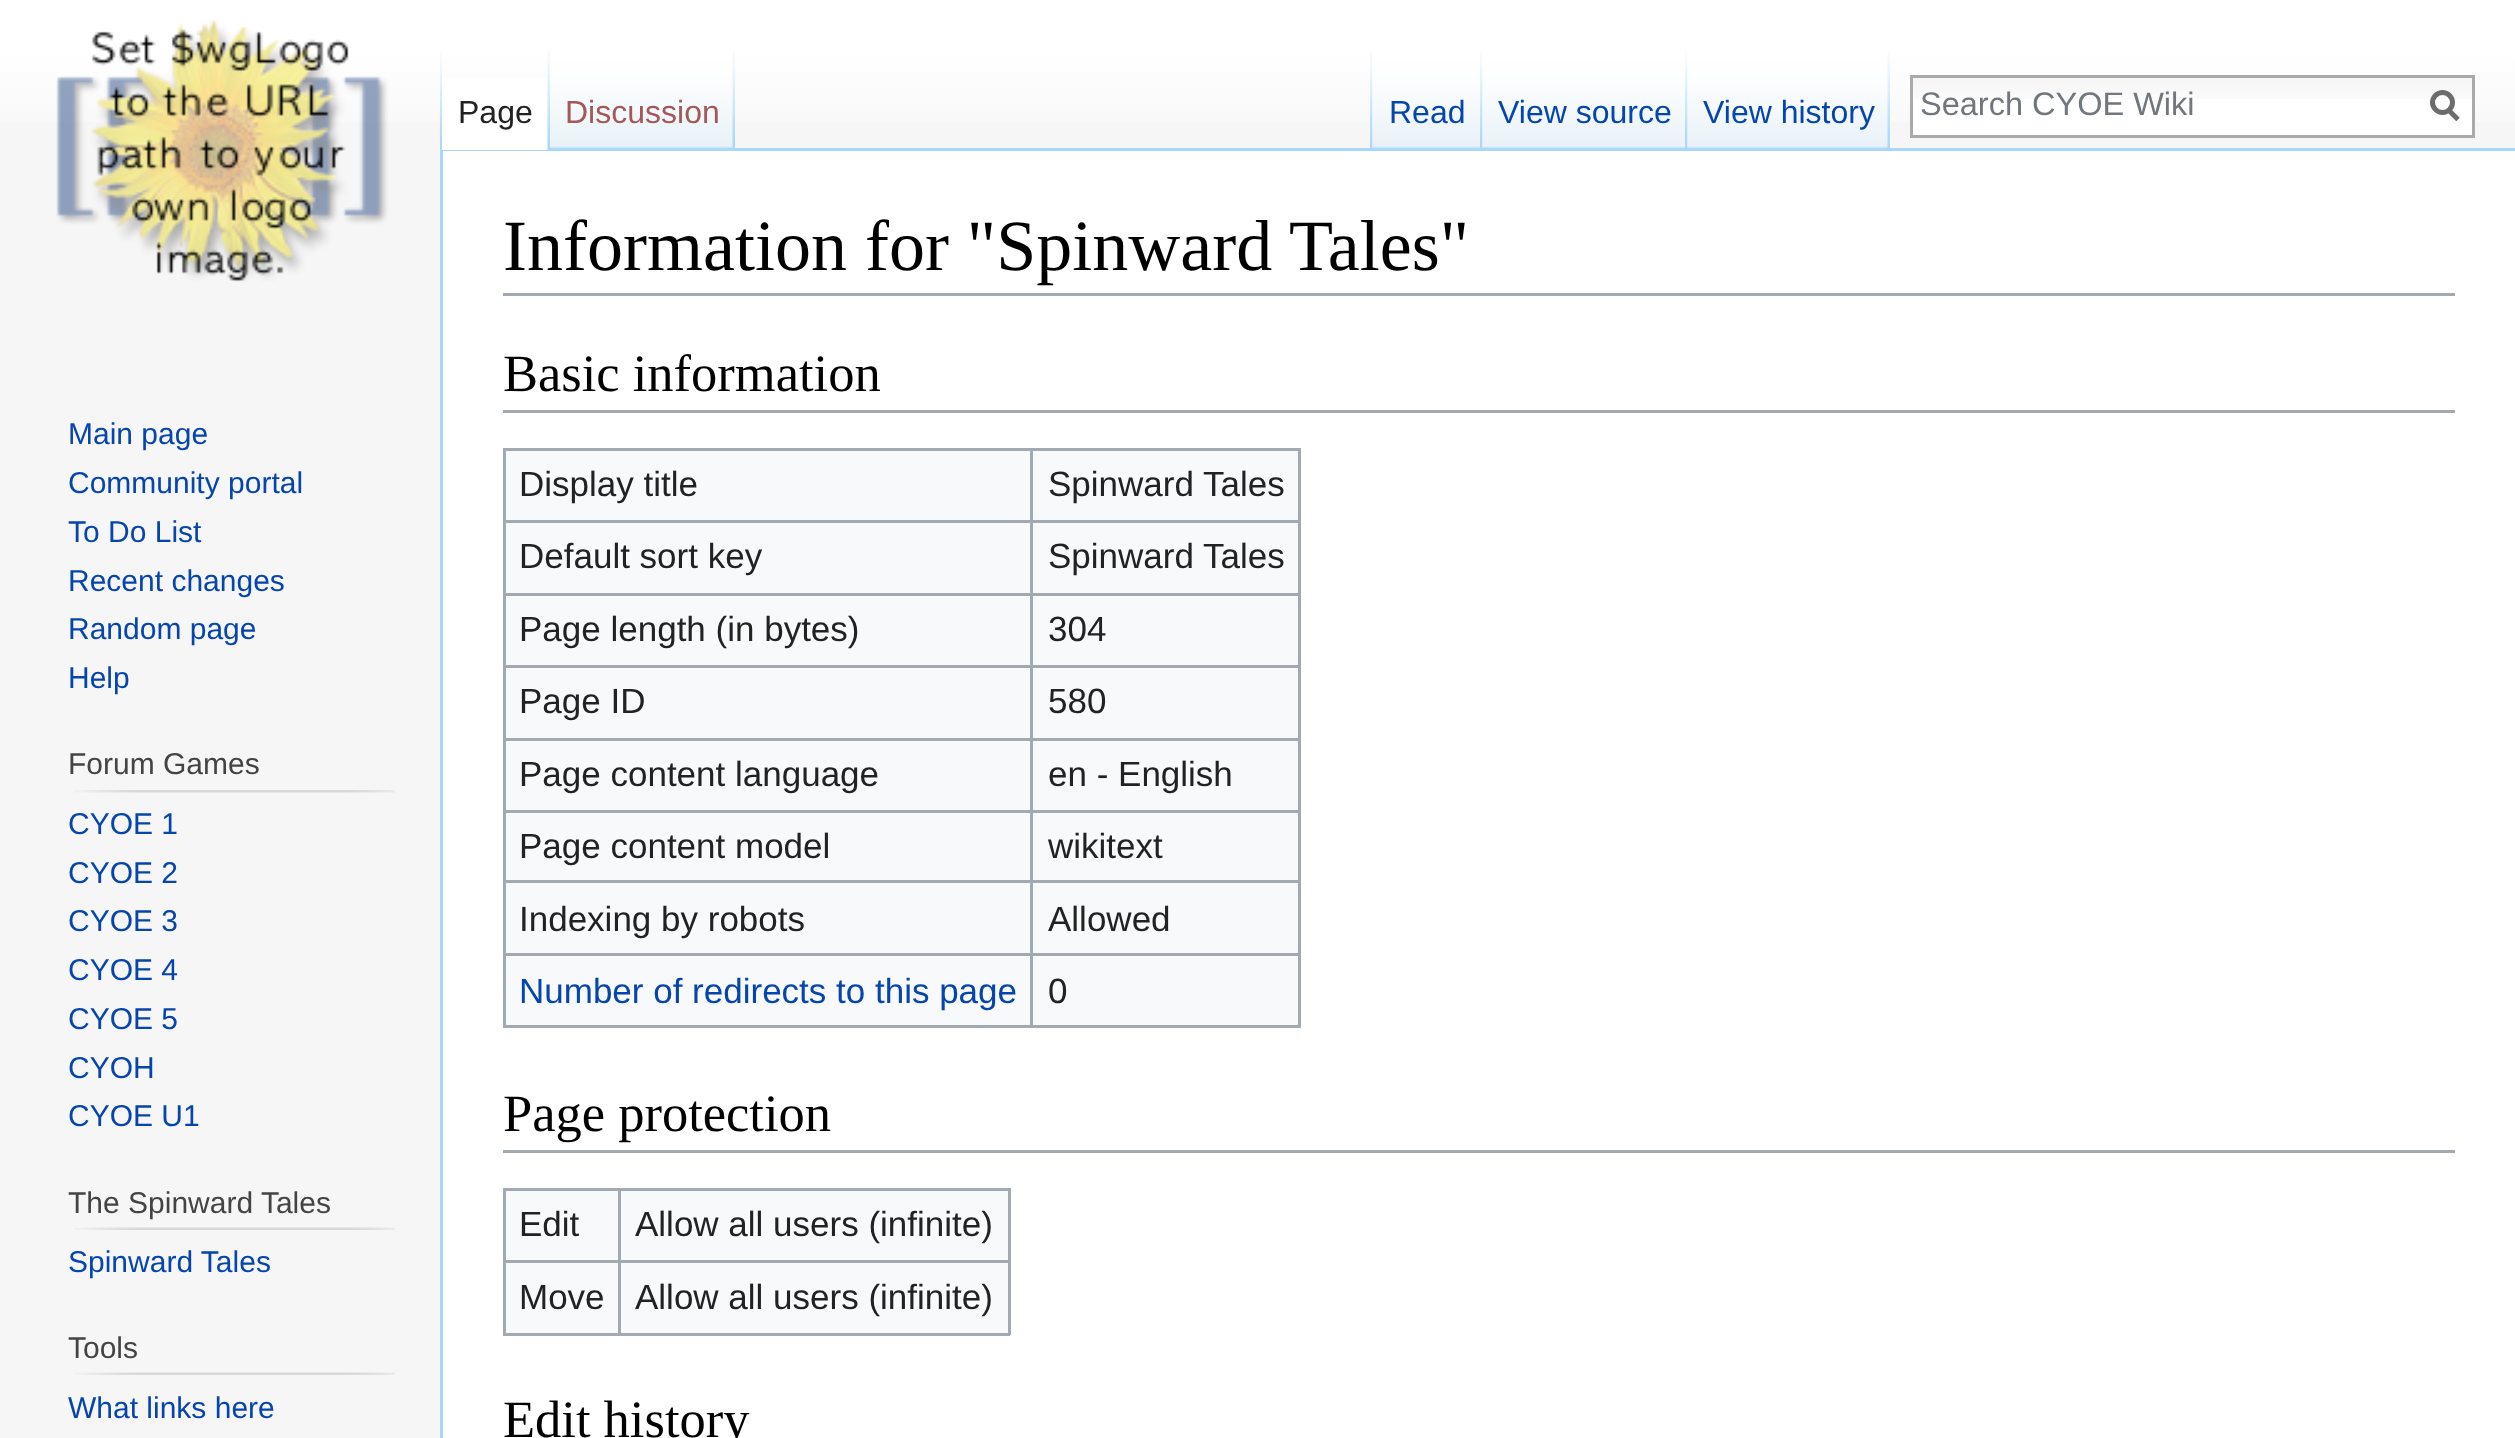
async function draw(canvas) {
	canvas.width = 2515;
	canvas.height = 1438;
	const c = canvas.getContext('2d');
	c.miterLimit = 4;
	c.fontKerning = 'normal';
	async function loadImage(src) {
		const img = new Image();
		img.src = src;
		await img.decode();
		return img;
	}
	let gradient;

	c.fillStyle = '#f6f6f6';
	c.fillRect(0, 0, 2515, 1438);
	gradient = c.createLinearGradient(1258, -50, 1258, 150);
	gradient.addColorStop(0.5, '#fff');
	gradient.addColorStop(1, '#f6f6f6');
	c.fillStyle = gradient;
	c.fillRect(0, 0, 2515, 122);
	c.drawImage(await loadImage('img1.png'), 440, 50, 2, 98);
	for (const [x, y, w, h, color] of [
		[440, 148, 2075, 3, '#a7d7f9'],
		[440, 148, 3, 1290, '#a7d7f9'],
		[442, 78, 106, 72, '#fff'],
	]) {
		c.fillStyle = color;
		c.fillRect(x, y, w, h);
	}
	c.drawImage(await loadImage('img2.png'), 547, 50, 3, 100);
	c.font = '32px Liberation Sans';
	c.fillStyle = '#222';
	c.fillText('Page', 458, 123);
	c.drawImage(await loadImage('img3.png'), 550, 50, 185, 100);
	c.drawImage(await loadImage('img4.png'), 732, 50, 3, 99);
	c.fillStyle = '#a55858';
	c.fillText('Discussion', 565, 123);
	c.drawImage(await loadImage('img5.png'), 1370, 50, 3, 98);
	c.drawImage(await loadImage('img6.png'), 1372, 50, 111, 100);
	c.drawImage(await loadImage('img7.png'), 1480, 50, 3, 100);
	c.fillStyle = '#0645ad';
	c.fillText('Read', 1389, 123);
	c.drawImage(await loadImage('img8.png'), 1482, 50, 206, 100);
	c.drawImage(await loadImage('img7.png'), 1685, 50, 3, 100);
	c.fillText('View source', 1498, 123);
	c.drawImage(await loadImage('img9.png'), 1687, 50, 203, 100);
	c.drawImage(await loadImage('img4.png'), 1887, 50, 3, 99);
	c.fillText('View history', 1703, 123);
	c.fillStyle = '#fff';
	c.fillRect(1913, 99, 559, 36);
	c.drawImage(await loadImage('img10.png'), 1913, 78, 559, 21);
	c.strokeStyle = '#aaa';
	c.lineWidth = 3;
	c.strokeRect(1911.5, 76.5, 562, 60);
	c.font = '32.5px Liberation Sans';
	c.fillStyle = '#72777d';
	c.fillText('Search CYOE Wiki', 1920, 115);
	c.beginPath();
	c.moveTo(2458, 119.5);
	c.lineTo(2448, 109.5);
	c.strokeStyle = '#6c6c6c';
	c.lineWidth = 5;
	c.stroke();
	c.beginPath();
	c.arc(2442.5, 102.5, 10, 0, 2 * Math.PI);
	c.stroke();
	c.drawImage(await loadImage('img11.png'), 56, 19, 332, 263);
	c.font = '30px Liberation Sans';
	c.fillStyle = '#0645ad';
	for (const [text, x, y] of [
		['Main page', 68, 444],
		['Community portal', 68, 493],
		['To Do List', 68, 542],
		['Recent changes', 68, 591],
		['Random page', 68, 639],
		['Help', 68, 688],
	]) {
		c.fillText(text, x, y);
	}
	c.fillStyle = '#444';
	c.fillText('Forum Games', 68, 774);
	c.drawImage(await loadImage('img12.png'), 74, 790, 321, 3);
	c.fillStyle = '#0645ad';
	for (const [text, x, y] of [
		['CYOE 1', 68, 834],
		['CYOE 2', 68, 883],
		['CYOE 3', 68, 931],
		['CYOE 4', 68, 980],
		['CYOE 5', 68, 1029],
		['CYOH', 68, 1078],
		['CYOE U1', 68, 1126],
	]) {
		c.fillText(text, x, y);
	}
	c.fillStyle = '#444';
	c.fillText('The Spinward Tales', 68, 1213);
	c.drawImage(await loadImage('img13.png'), 74, 1227, 321, 3);
	c.fillStyle = '#0645ad';
	c.fillText('Spinward Tales', 68, 1272);
	c.fillStyle = '#444';
	c.fillText('Tools', 68, 1358);
	c.drawImage(await loadImage('img13.png'), 74, 1372, 321, 3);
	c.fillStyle = '#0645ad';
	c.fillText('What links here', 68, 1418);
	c.fillStyle = '#fff';
	c.fillRect(443, 151, 2072, 1287);
	c.fillStyle = '#a2a9b1';
	c.fillRect(503, 293, 1952, 3);
	c.font = '72px Liberation Serif';
	c.fillStyle = '#000';
	c.fillText('Information for "Spinward Tales"', 503, 270);
	c.fillStyle = '#a2a9b1';
	c.fillRect(503, 410, 1952, 3);
	c.font = '52.5px Liberation Serif';
	c.fillStyle = '#000';
	c.fillText('Basic information', 503, 391);
	for (const [x, y, w, h, color] of [
		[506, 451, 792, 574, '#f8f9fa'],
		[503, 448, 797, 3, '#a2a9b1'],
		[1298, 448, 3, 580, '#a2a9b1'],
		[503, 1025, 797, 3, '#a2a9b1'],
		[503, 448, 3, 580, '#a2a9b1'],
	]) {
		c.fillStyle = color;
		c.fillRect(x, y, w, h);
	}
	c.font = '35px Liberation Sans';
	c.fillStyle = '#222';
	c.fillText('Display title', 519, 496);
	for (const [x, y, w, h, color] of [
		[1030, 520, 270, 3, '#a2a9b1'],
		[1030, 593, 270, 3, '#a2a9b1'],
		[1030, 665, 270, 3, '#a2a9b1'],
		[1030, 738, 270, 3, '#a2a9b1'],
		[1030, 810, 270, 3, '#a2a9b1'],
		[1030, 880, 270, 3, '#a2a9b1'],
		[1030, 953, 270, 3, '#a2a9b1'],
		[1030, 953, 3, 75, '#a2a9b1'],
		[503, 953, 530, 3, '#a2a9b1'],
		[1030, 880, 3, 75, '#a2a9b1'],
		[503, 880, 530, 3, '#a2a9b1'],
		[1030, 810, 3, 73, '#a2a9b1'],
		[503, 810, 530, 3, '#a2a9b1'],
		[1030, 738, 3, 75, '#a2a9b1'],
		[503, 738, 530, 3, '#a2a9b1'],
		[1030, 665, 3, 75, '#a2a9b1'],
		[503, 665, 530, 3, '#a2a9b1'],
		[1030, 593, 3, 75, '#a2a9b1'],
		[503, 593, 530, 3, '#a2a9b1'],
		[1030, 520, 3, 75, '#a2a9b1'],
		[503, 520, 530, 3, '#a2a9b1'],
		[1030, 448, 3, 75, '#a2a9b1'],
	]) {
		c.fillStyle = color;
		c.fillRect(x, y, w, h);
	}
	c.fillStyle = '#222';
	for (const [text, x, y] of [
		['Spinward Tales', 1048, 496],
		['Default sort key', 519, 568],
		['Spinward Tales', 1048, 568],
		['Page length (in bytes)', 519, 641],
		['304', 1048, 641],
		['Page ID', 519, 713],
		['580', 1048, 713],
		['Page content language', 519, 786],
		['en - English', 1048, 786],
		['Page content model', 519, 858],
		['wikitext', 1048, 858],
		['Indexing by robots', 519, 931],
		['Allowed', 1048, 931],
	]) {
		c.fillText(text, x, y);
	}
	c.fillStyle = '#0645ad';
	c.fillText('Number of redirects to this page', 519, 1003);
	c.fillStyle = '#222';
	c.fillText('0', 1048, 1003);
	c.fillStyle = '#a2a9b1';
	c.fillRect(503, 1150, 1952, 3);
	c.font = '52.5px Liberation Serif';
	c.fillStyle = '#000';
	c.fillText('Page protection', 503, 1131);
	for (const [x, y, w, h, color] of [
		[506, 1191, 502, 142, '#f8f9fa'],
		[503, 1188, 507, 3, '#a2a9b1'],
		[1008, 1188, 3, 147, '#a2a9b1'],
		[503, 1333, 507, 3, '#a2a9b1'],
		[503, 1188, 3, 147, '#a2a9b1'],
	]) {
		c.fillStyle = color;
		c.fillRect(x, y, w, h);
	}
	c.font = '35px Liberation Sans';
	c.fillStyle = '#222';
	c.fillText('Edit', 519, 1236);
	for (const [x, y, w, h, color] of [
		[618, 1260, 392, 3, '#a2a9b1'],
		[618, 1260, 3, 75, '#a2a9b1'],
		[503, 1260, 117, 3, '#a2a9b1'],
		[618, 1188, 3, 75, '#a2a9b1'],
	]) {
		c.fillStyle = color;
		c.fillRect(x, y, w, h);
	}
	c.fillStyle = '#222';
	for (const [text, x, y] of [
		['Allow all users (infinite)', 635, 1236],
		['Move', 519, 1309],
		['Allow all users (infinite)', 635, 1309],
	]) {
		c.fillText(text, x, y);
	}
	c.font = '52.5px Liberation Serif';
	c.fillStyle = '#000';
	c.fillText('Edit history', 503, 1437);
}

draw(document.querySelector('canvas'));
